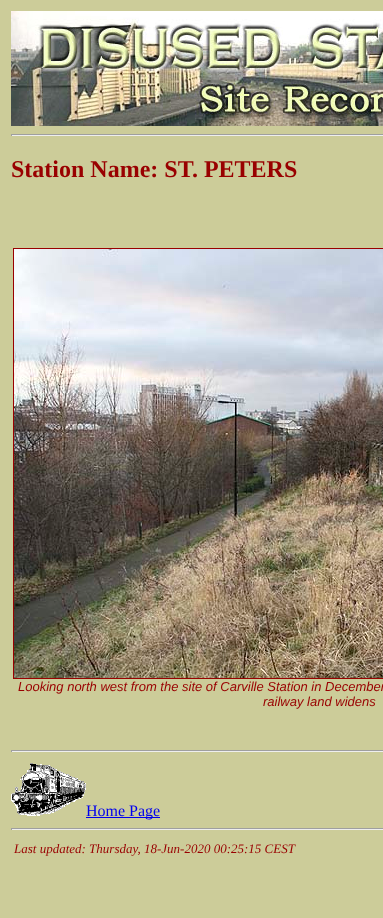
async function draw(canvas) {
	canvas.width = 383;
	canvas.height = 918;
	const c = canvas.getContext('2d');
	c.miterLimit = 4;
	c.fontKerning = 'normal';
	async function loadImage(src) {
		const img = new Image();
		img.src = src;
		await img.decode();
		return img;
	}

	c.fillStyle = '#cc9';
	c.fillRect(0, 0, 383, 918);
	c.drawImage(await loadImage('img1.png'), 11, 11, 372, 115);
	for (const [x, y, w, h, color] of [
		[11, 134, 372, 1, '#9f9f9f'],
		[11, 135, 372, 1, '#eee'],
		[11, 134, 1, 2, '#9f9f9f'],
	]) {
		c.fillStyle = color;
		c.fillRect(x, y, w, h);
	}
	c.font = 'bold 24px Liberation Serif';
	c.fillStyle = '#900';
	c.fillText('Station Name: ST. PETERS', 11, 177);
	c.strokeStyle = '#900';
	c.strokeRect(13.5, 248.5, 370, 430);
	c.drawImage(await loadImage('img2.png'), 14, 249, 369, 429);
	c.font = 'italic 13px Liberation Sans';
	c.fillText('Looking north west from the site of Carville Station in December', 18, 691);
	c.fillText('railway land widens', 263, 706);
	for (const [x, y, w, h, color] of [
		[11, 750, 372, 1, '#9f9f9f'],
		[11, 751, 372, 1, '#eee'],
		[11, 750, 1, 2, '#9f9f9f'],
	]) {
		c.fillStyle = color;
		c.fillRect(x, y, w, h);
	}
	c.drawImage(await loadImage('img3.png'), 11, 763, 75, 53);
	c.fillStyle = '#00e';
	c.fillRect(86, 817, 74, 1);
	c.font = '16px Liberation Serif';
	c.fillText('Home Page', 86, 816);
	for (const [x, y, w, h, color] of [
		[11, 828, 372, 1, '#9f9f9f'],
		[11, 829, 372, 1, '#eee'],
		[11, 828, 1, 2, '#9f9f9f'],
	]) {
		c.fillStyle = color;
		c.fillRect(x, y, w, h);
	}
	c.font = 'italic 13px Liberation Serif';
	c.fillStyle = '#900';
	c.fillText('Last updated: Thursday, 18-Jun-2020 00:25:15 CEST', 14, 853);
}

draw(document.querySelector('canvas'));
